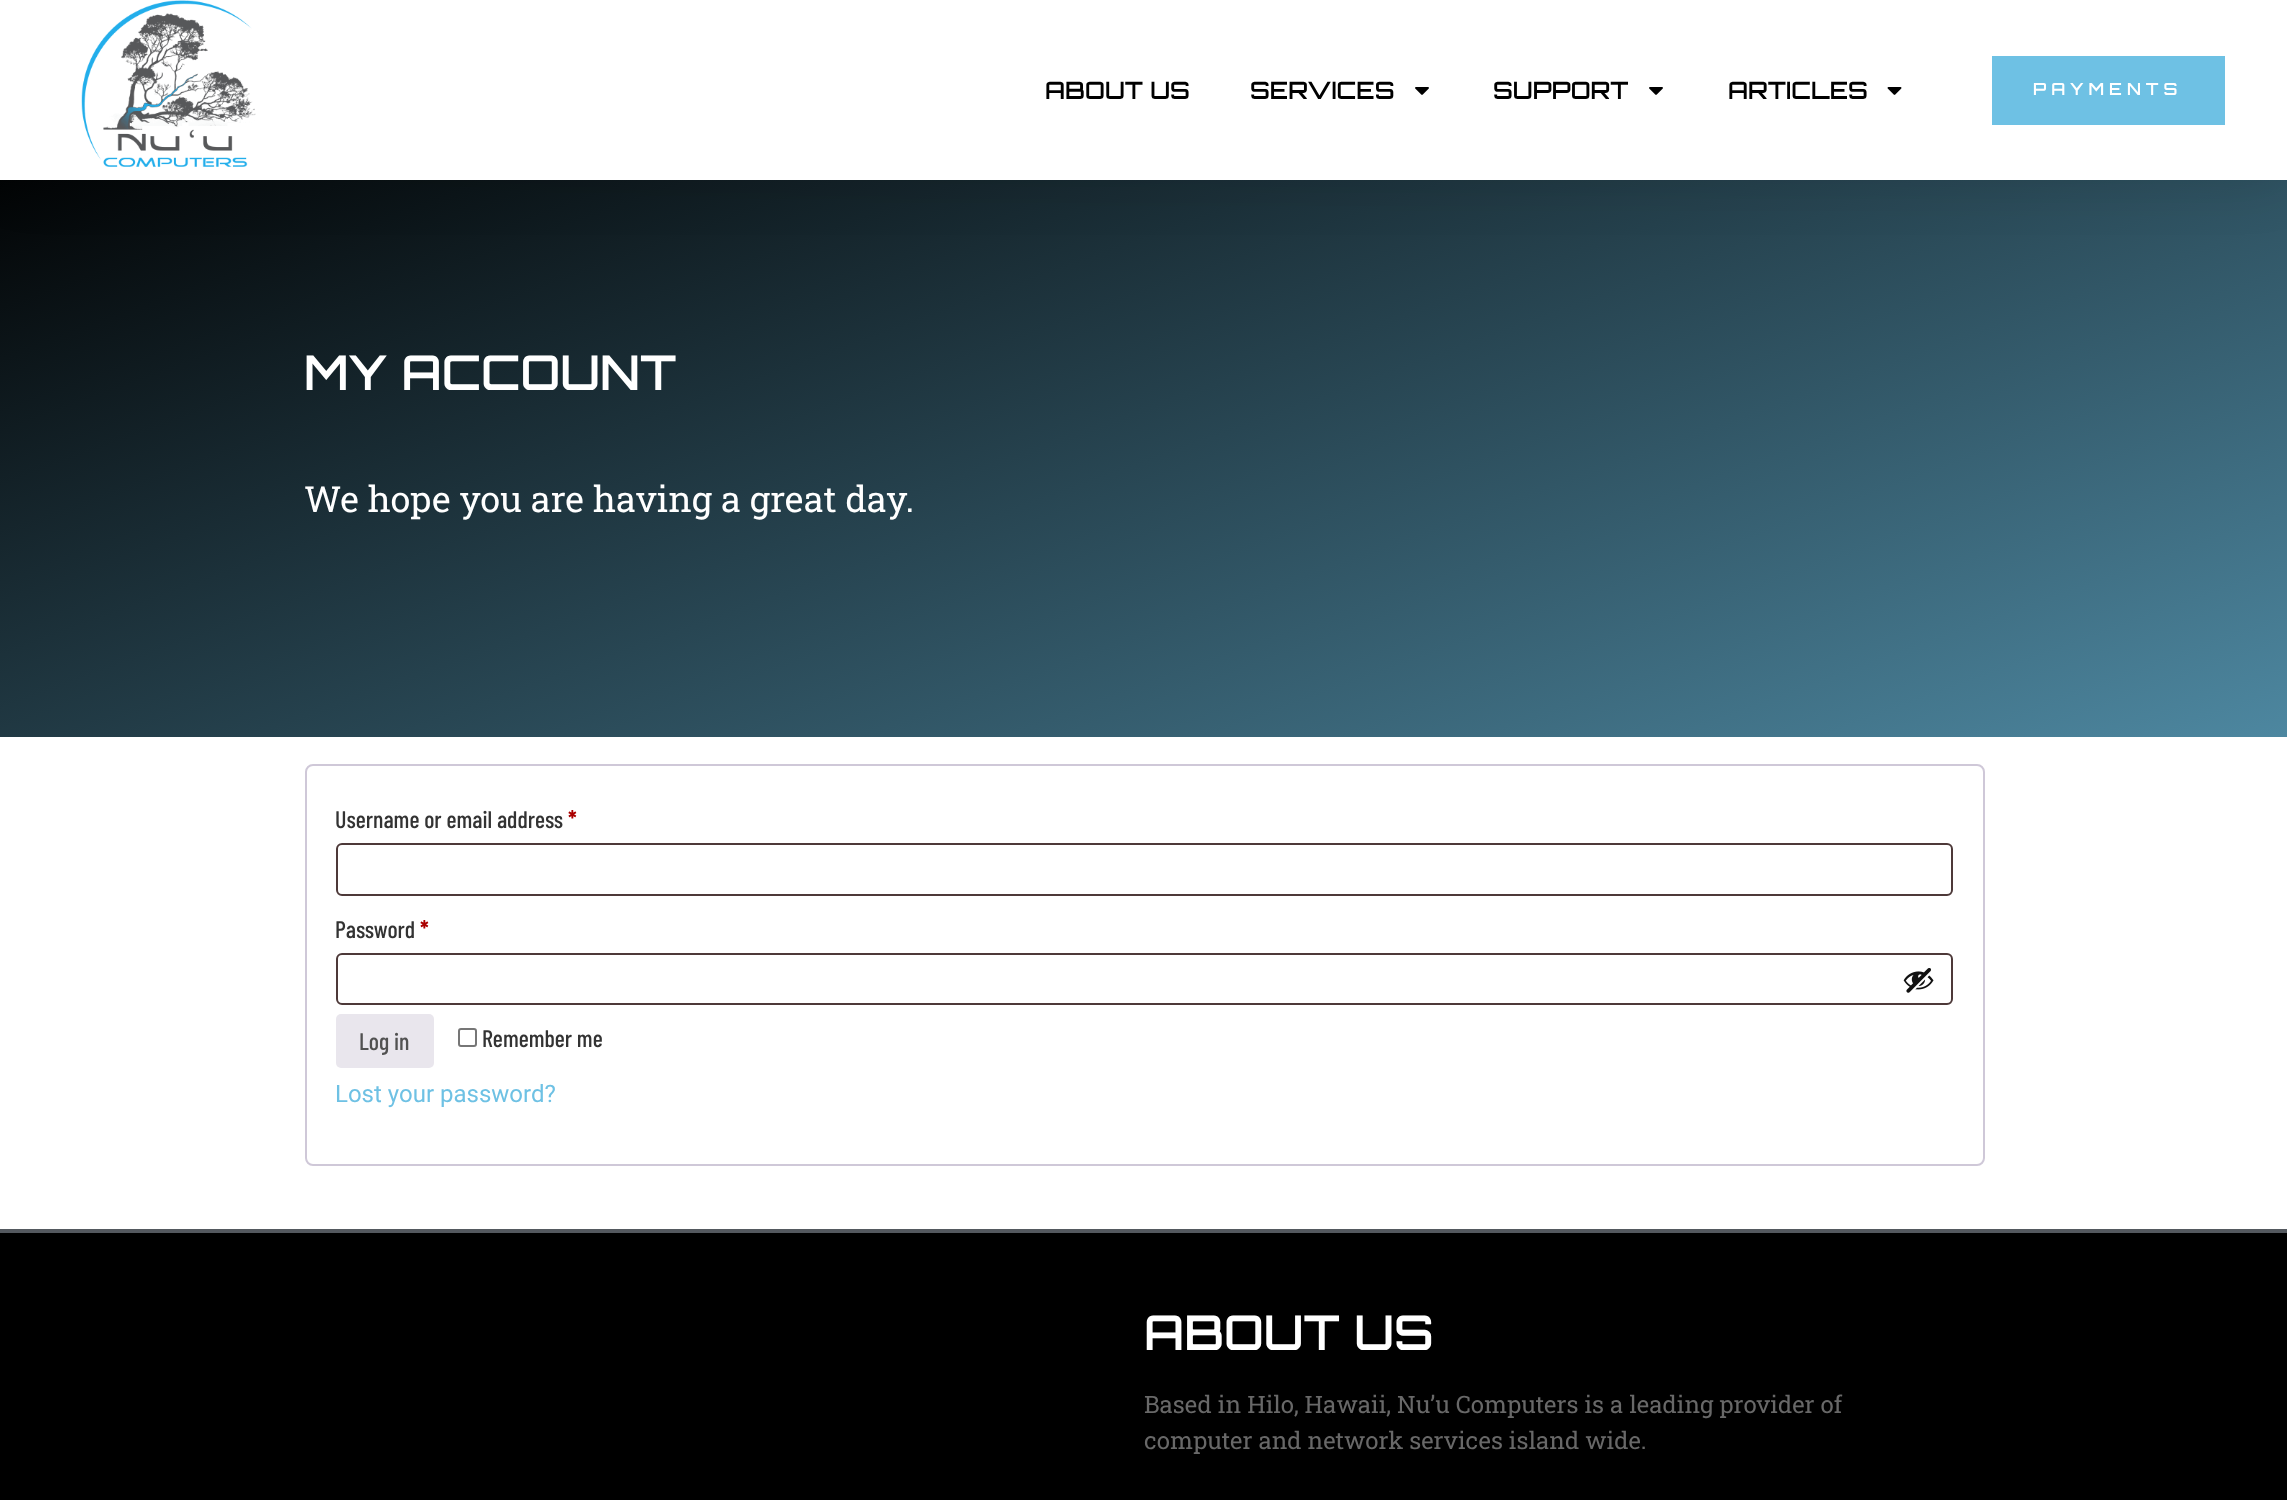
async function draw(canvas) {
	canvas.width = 2287;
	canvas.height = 1500;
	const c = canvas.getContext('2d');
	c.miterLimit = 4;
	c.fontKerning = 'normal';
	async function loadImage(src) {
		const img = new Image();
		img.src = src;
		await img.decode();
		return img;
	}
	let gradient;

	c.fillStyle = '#fff';
	c.fillRect(0, 0, 2287, 1500);
	gradient = c.createLinearGradient(914, -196, 1374, 1069);
	gradient.addColorStop(0, '#000');
	gradient.addColorStop(1, '#4d87a0');
	c.fillStyle = gradient;
	c.fillRect(0, 180, 2287, 557);
	c.fillStyle = '#0000001a';
	c.filter = 'blur(28.5px)';
	c.beginPath();
	c.rect(0, 0, 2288, 180);
	c.fill();
	c.filter = 'none';
	c.fillStyle = '#fff';
	c.fillRect(0, 0, 2287, 180);
	c.drawImage(await loadImage('img1.png'), 81, 0, 175, 167);
	c.font = '600 24px Orbitron';
	c.fillStyle = '#000';
	c.fillText('ABOUT US', 1045, 99);
	c.fillText('SERVICES', 1250, 99);
	c.drawImage(await loadImage('img2.png'), 1415, 87, 14, 8);
	c.fillText('SUPPORT', 1493, 99);
	c.drawImage(await loadImage('img2.png'), 1649, 87, 14, 8);
	c.fillText('ARTICLES', 1728, 99);
	c.drawImage(await loadImage('img3.png'), 1887, 87, 15, 8);
	c.fillStyle = '#6ec1e4';
	c.fillRect(1992, 56, 233, 69);
	c.letterSpacing = '5px';
	c.font = '600 16.75px Orbitron';
	c.fillStyle = '#fff';
	c.fillText('PAYMENTS', 2033, 95);
	c.letterSpacing = '0px';
	c.font = '600 48px Orbitron';
	c.fillText('MY ACCOUNT', 304, 390);
	c.font = '36px Roboto Slab';
	c.fillText('We hope you are having a great day.', 304, 512);
	c.fillStyle = '#54595f';
	c.fillRect(0, 1229, 2287, 4);
	c.beginPath();
	c.roundRect(306, 765, 1678, 400, 7);
	c.strokeStyle = '#cfc8d8';
	c.lineWidth = 2;
	c.stroke();
	c.font = '500 24px Barlow Condensed';
	c.fillStyle = '#333';
	c.fillText('Username or email address', 335, 828);
	c.font = 'bold 24px Barlow Condensed';
	c.fillStyle = '#a00';
	c.fillText('*', 568, 828);
	c.beginPath();
	c.roundRect(337, 844, 1615, 51, 5);
	c.strokeStyle = '#4d3939';
	c.stroke();
	c.font = '500 24px Barlow Condensed';
	c.fillStyle = '#333';
	c.fillText('Password', 335, 938);
	c.font = 'bold 24px Barlow Condensed';
	c.fillStyle = '#a00';
	c.fillText('*', 420, 938);
	c.beginPath();
	c.roundRect(337, 954, 1615, 50, 5);
	c.stroke();
	c.drawImage(await loadImage('img4.png'), 1903, 968, 31, 25);
	c.fillStyle = '#e9e6ed';
	c.beginPath();
	c.roundRect(336, 1014, 98, 54, 5);
	c.fill();
	c.font = '500 24px Barlow Condensed';
	c.fillStyle = '#515151';
	c.fillText('Log in', 359, 1050);
	c.beginPath();
	c.roundRect(459, 1029, 17, 17, 2);
	c.strokeStyle = '#767676';
	c.stroke();
	c.fillStyle = '#333';
	c.fillText('Remember me', 482, 1047);
	c.font = '24px Roboto';
	c.fillStyle = '#6ec1e4';
	c.fillText('Lost your password?', 335, 1102);
	c.fillStyle = '#000';
	c.fillRect(0, 1233, 2287, 267);
	c.font = '600 48px Orbitron';
	c.fillStyle = '#fff';
	c.fillText('ABOUT US', 1144, 1350);
	c.font = '24px Roboto Slab';
	c.fillStyle = '#686868';
	c.fillText('Based in Hilo, Hawaii, Nu’u Computers is a leading provider of', 1144, 1413);
	c.fillText('computer and network services island wide.', 1144, 1449);
}

draw(document.querySelector('canvas'));
